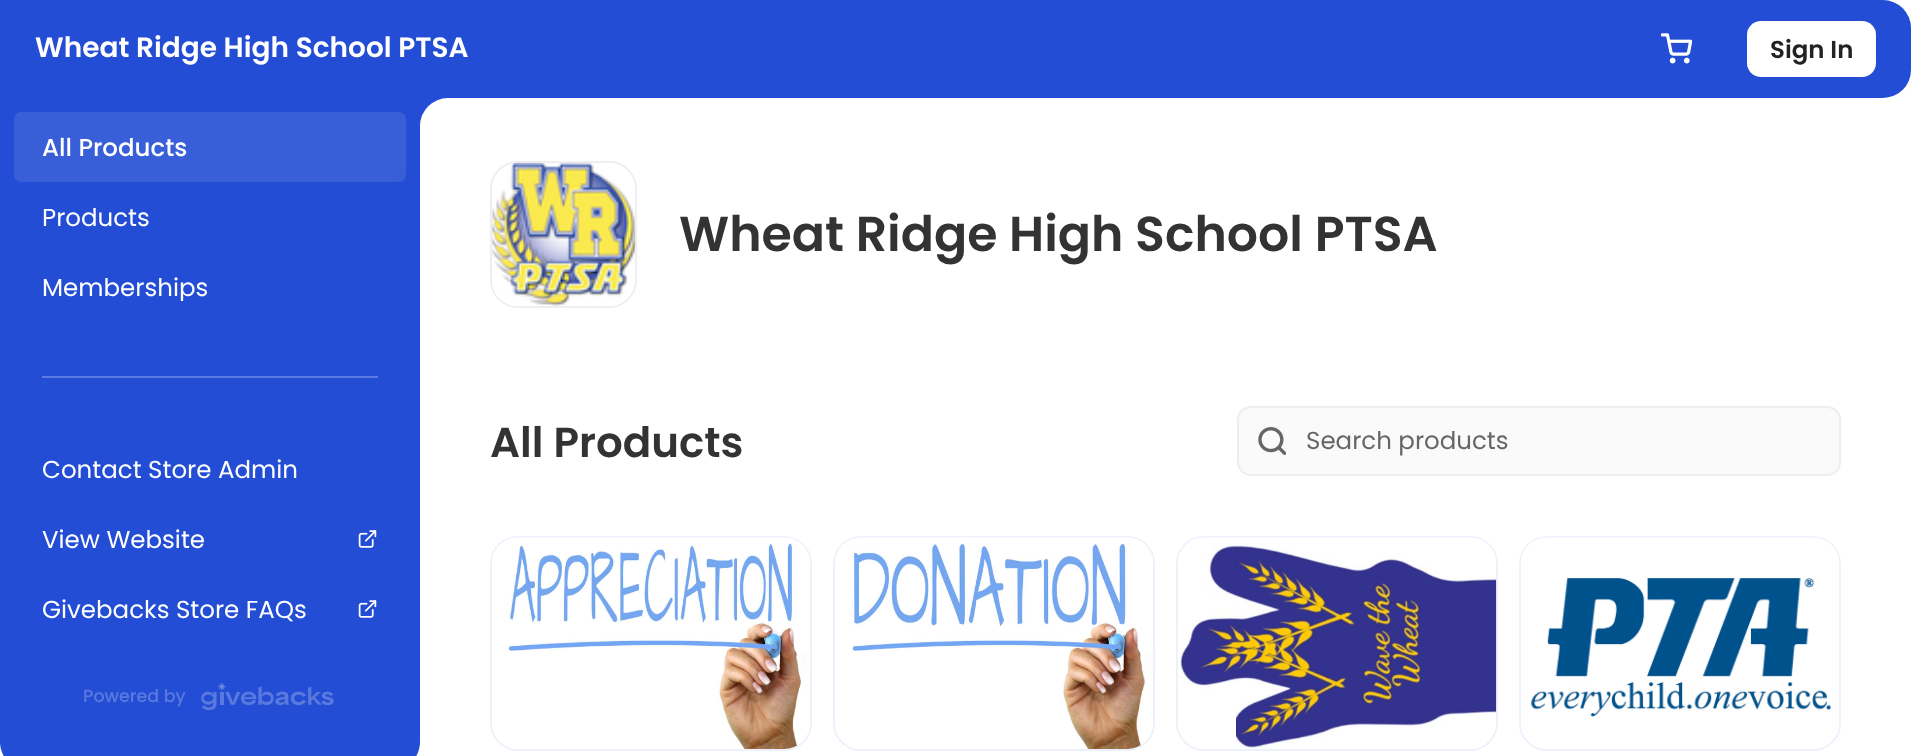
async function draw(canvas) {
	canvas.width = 1911;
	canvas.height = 756;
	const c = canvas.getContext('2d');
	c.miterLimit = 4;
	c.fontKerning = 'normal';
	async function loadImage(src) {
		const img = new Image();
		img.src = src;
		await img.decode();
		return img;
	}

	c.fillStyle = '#fff';
	c.fillRect(0, 0, 1911, 756);
	c.fillStyle = '#234dd4';
	c.beginPath();
	c.roundRect(0, 0, 1911, 98, [0, 28, 28, 0]);
	c.fill();
	c.font = '600 28px Poppins';
	c.fillStyle = '#fff';
	c.fillText('Wheat Ridge High School PTSA', 35, 57);
	c.drawImage(await loadImage('img1.png'), 1661, 33, 31, 31);
	c.beginPath();
	c.roundRect(1747, 21, 129, 56, 14);
	c.fill();
	c.font = '600 24.5px Poppins';
	c.fillStyle = '#222';
	c.fillText('Sign In', 1770, 58);
	c.fillStyle = '#234dd4';
	c.beginPath();
	c.moveTo(0, 98);
	c.lineTo(420, 98);
	c.lineTo(420, 742);
	c.bezierCurveTo(420, 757.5, 407.5, 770, 392, 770);
	c.lineTo(28, 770);
	c.bezierCurveTo(12.5, 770, 0, 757.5, 0, 742);
	c.closePath();
	c.fill();
	c.fillRect(420, 98, 28, 28);
	c.fillStyle = '#fff';
	c.beginPath();
	c.roundRect(420, 98, 32, 32, [28, 0, 0, 0]);
	c.fill();
	c.fillStyle = '#395fd8';
	c.beginPath();
	c.roundRect(14, 112, 392, 70, 7);
	c.fill();
	c.font = '500 24.5px Poppins';
	c.fillStyle = '#fff';
	c.fillText('All Products', 42, 156);
	c.font = '24.5px Poppins';
	c.fillText('Products', 42, 226);
	c.save();
	c.beginPath();
	c.rect(42, 273, 336, 28);
	c.clip();
	c.fillText('Memberships', 42, 296);
	c.restore();
	c.fillStyle = '#5a7adf';
	c.fillRect(42, 376, 336, 2);
	c.fillStyle = '#fff';
	c.fillText('Contact Store Admin', 42, 478);
	c.fillText('View Website', 42, 548);
	c.drawImage(await loadImage('img2.png'), 358, 530, 19, 18);
	c.fillText('Givebacks Store FAQs', 42, 618);
	c.drawImage(await loadImage('img2.png'), 358, 600, 19, 18);
	c.font = '500 17.5px Poppins';
	c.fillStyle = '#5a7adf';
	c.fillText('Powered by', 83, 702);
	c.drawImage(await loadImage('img3.png'), 201, 682, 133, 29);
	c.beginPath();
	c.roundRect(491, 162, 145, 145, 27);
	c.strokeStyle = '#eee';
	c.lineWidth = 2;
	c.stroke();
	c.drawImage(await loadImage('img4.png'), 492, 162, 144, 144);
	c.font = '600 49px Poppins';
	c.fillStyle = '#333';
	c.fillText('Wheat Ridge High School PTSA', 679, 251);
	c.font = '600 42px Poppins';
	c.fillText('All Products', 490, 457);
	c.fillStyle = '#fafafa';
	c.beginPath();
	c.roundRect(1238, 407, 602, 68, 13);
	c.fill();
	c.stroke();
	c.drawImage(await loadImage('img5.png'), 1258, 427, 28, 28);
	c.font = '24.5px Poppins';
	c.fillStyle = '#666';
	c.fillText('Search products', 1306, 449);
	c.beginPath();
	c.roundRect(491, 537, 320, 213, 27);
	c.strokeStyle = '#edf1fc';
	c.stroke();
	c.drawImage(await loadImage('img6.png'), 492, 537, 318, 212);
	c.beginPath();
	c.roundRect(834, 537, 320, 213, 27);
	c.stroke();
	c.drawImage(await loadImage('img7.png'), 835, 537, 318, 212);
	c.beginPath();
	c.roundRect(1177, 537, 320, 213, 27);
	c.stroke();
	c.drawImage(await loadImage('img8.png'), 1178, 537, 319, 212);
	c.beginPath();
	c.roundRect(1520, 537, 320, 213, 27);
	c.stroke();
	c.drawImage(await loadImage('img9.png'), 1521, 537, 318, 212);
}

draw(document.querySelector('canvas'));
